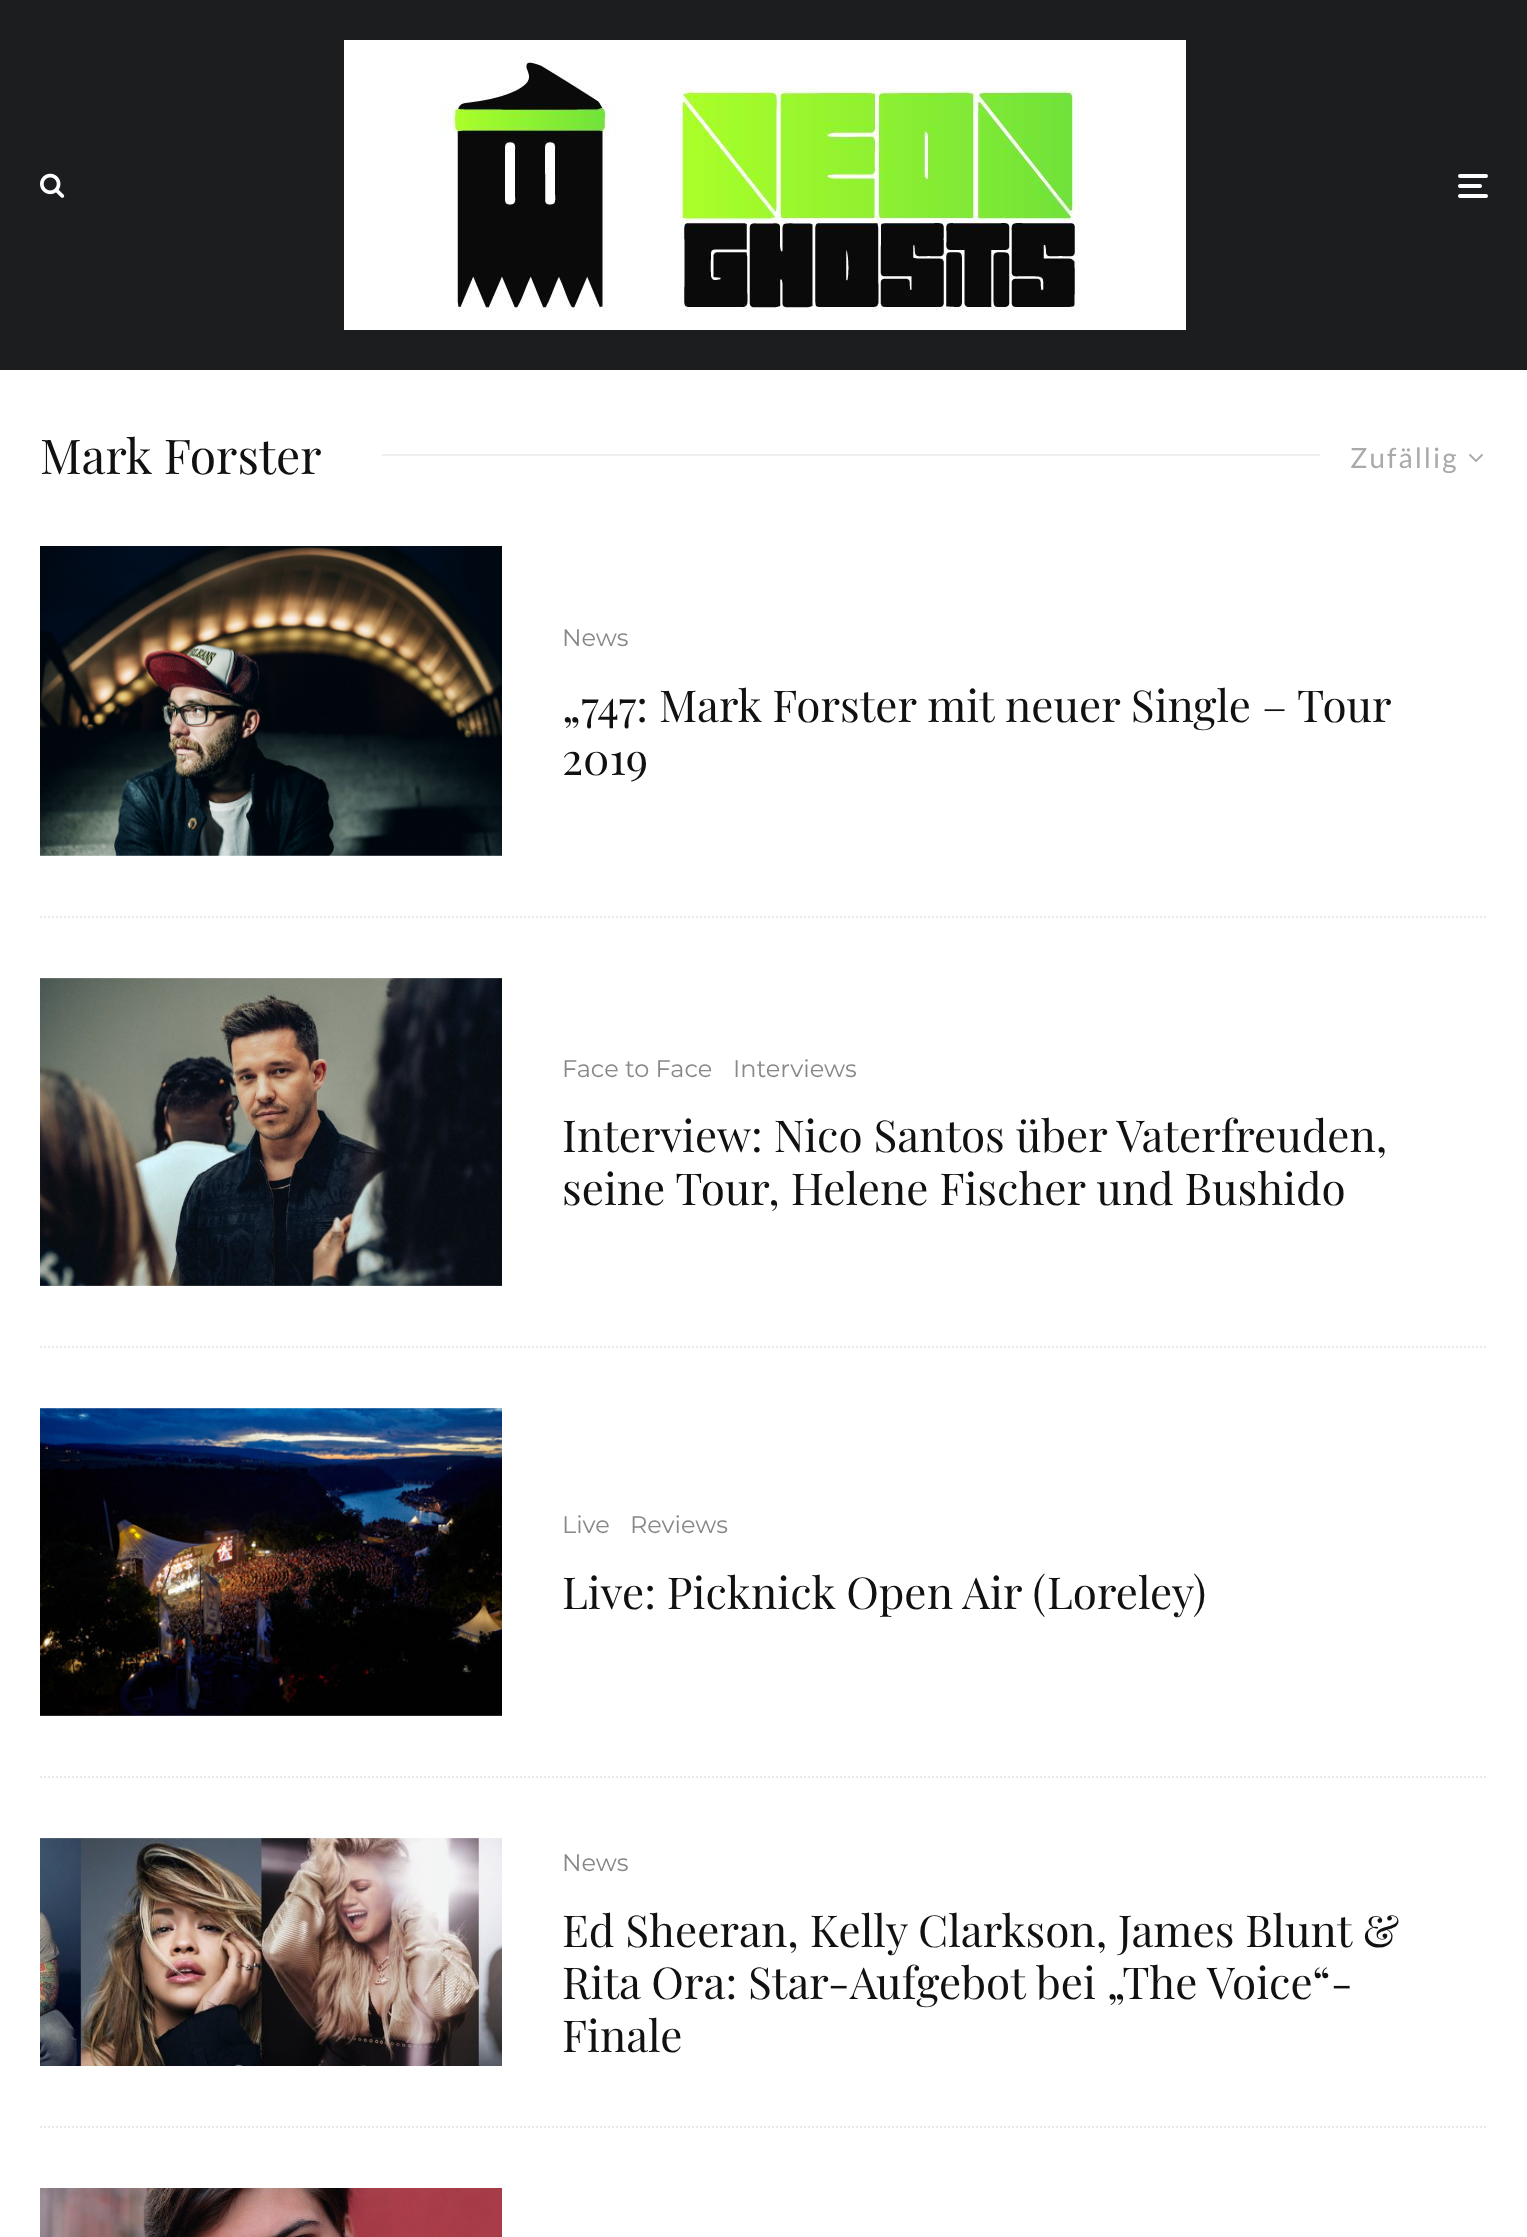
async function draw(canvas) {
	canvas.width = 1527;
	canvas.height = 2237;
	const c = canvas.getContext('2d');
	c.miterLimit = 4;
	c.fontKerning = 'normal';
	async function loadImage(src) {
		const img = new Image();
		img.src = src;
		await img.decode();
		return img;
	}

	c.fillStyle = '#fff';
	c.fillRect(0, 0, 1527, 2237);
	c.fillStyle = '#1c1d1e';
	c.fillRect(0, 0, 1527, 370);
	c.drawImage(await loadImage('img1.png'), 40, 173, 25, 25);
	c.drawImage(await loadImage('img2.png'), 344, 40, 842, 290);
	c.fillStyle = '#fff';
	c.beginPath();
	c.roundRect(1458, 184, 24, 4, 2);
	c.fill();
	c.beginPath();
	c.roundRect(1458, 174, 30, 4, 2);
	c.fill();
	c.beginPath();
	c.roundRect(1458, 194, 30, 4, 2);
	c.fill();
	c.font = '48px Playfair Display';
	c.fillStyle = '#111';
	c.fillText('Mark Forster', 40, 474);
	c.fillStyle = '#eee';
	c.fillRect(382, 454, 938, 2);
	c.letterSpacing = '2px';
	c.font = '28px Lato';
	c.fillStyle = '#aaa';
	c.fillText('Zufällig', 1350, 468);
	c.drawImage(await loadImage('img3.png'), 1469, 454, 14, 8);
	c.beginPath();
	c.moveTo(40, 917);
	c.lineTo(1488, 917);
	c.strokeStyle = '#e9e9e9';
	c.lineWidth = 2;
	c.setLineDash([2, 2]);
	c.stroke();
	c.drawImage(await loadImage('img4.png'), 40, 546, 462, 310);
	c.letterSpacing = '0px';
	c.font = '24px Montserrat';
	c.fillStyle = '#888';
	c.fillText('News', 562, 646);
	c.font = '44px Playfair Display';
	c.fillStyle = '#111';
	c.fillText('„747: Mark Forster mit neuer Single – Tour', 562, 722);
	c.fillText('2019', 562, 775);
	c.beginPath();
	c.moveTo(40, 1347);
	c.lineTo(1488, 1347);
	c.stroke();
	c.drawImage(await loadImage('img5.png'), 40, 978, 462, 308);
	c.font = '24px Montserrat';
	c.fillStyle = '#888';
	c.fillText('Face to Face', 562, 1077);
	c.fillText('Interviews', 733, 1077);
	c.font = '44px Playfair Display';
	c.fillStyle = '#111';
	c.fillText('Interview: Nico Santos über Vaterfreuden,', 562, 1152);
	c.fillText('seine Tour, Helene Fischer und Bushido', 562, 1205);
	c.beginPath();
	c.moveTo(40, 1777);
	c.lineTo(1488, 1777);
	c.stroke();
	c.drawImage(await loadImage('img6.png'), 40, 1408, 462, 308);
	c.font = '24px Montserrat';
	c.fillStyle = '#888';
	c.fillText('Live', 562, 1533);
	c.fillText('Reviews', 630, 1533);
	c.font = '44px Playfair Display';
	c.fillStyle = '#111';
	c.fillText('Live: Picknick Open Air (Loreley)', 562, 1609);
	c.beginPath();
	c.moveTo(40, 2127);
	c.lineTo(1488, 2127);
	c.stroke();
	c.drawImage(await loadImage('img7.png'), 40, 1838, 462, 228);
	c.font = '24px Montserrat';
	c.fillStyle = '#888';
	c.fillText('News', 562, 1871);
	c.font = '44px Playfair Display';
	c.fillStyle = '#111';
	for (const [text, x, y] of [
		['Ed Sheeran, Kelly Clarkson, James Blunt &', 562, 1947],
		['Rita Ora: Star-Aufgebot bei „The Voice“-', 562, 1999],
		['Finale', 562, 2052],
	]) {
		c.fillText(text, x, y);
	}
	c.drawImage(await loadImage('img8.png'), 40, 2188, 462, 49);
}

draw(document.querySelector('canvas'));
